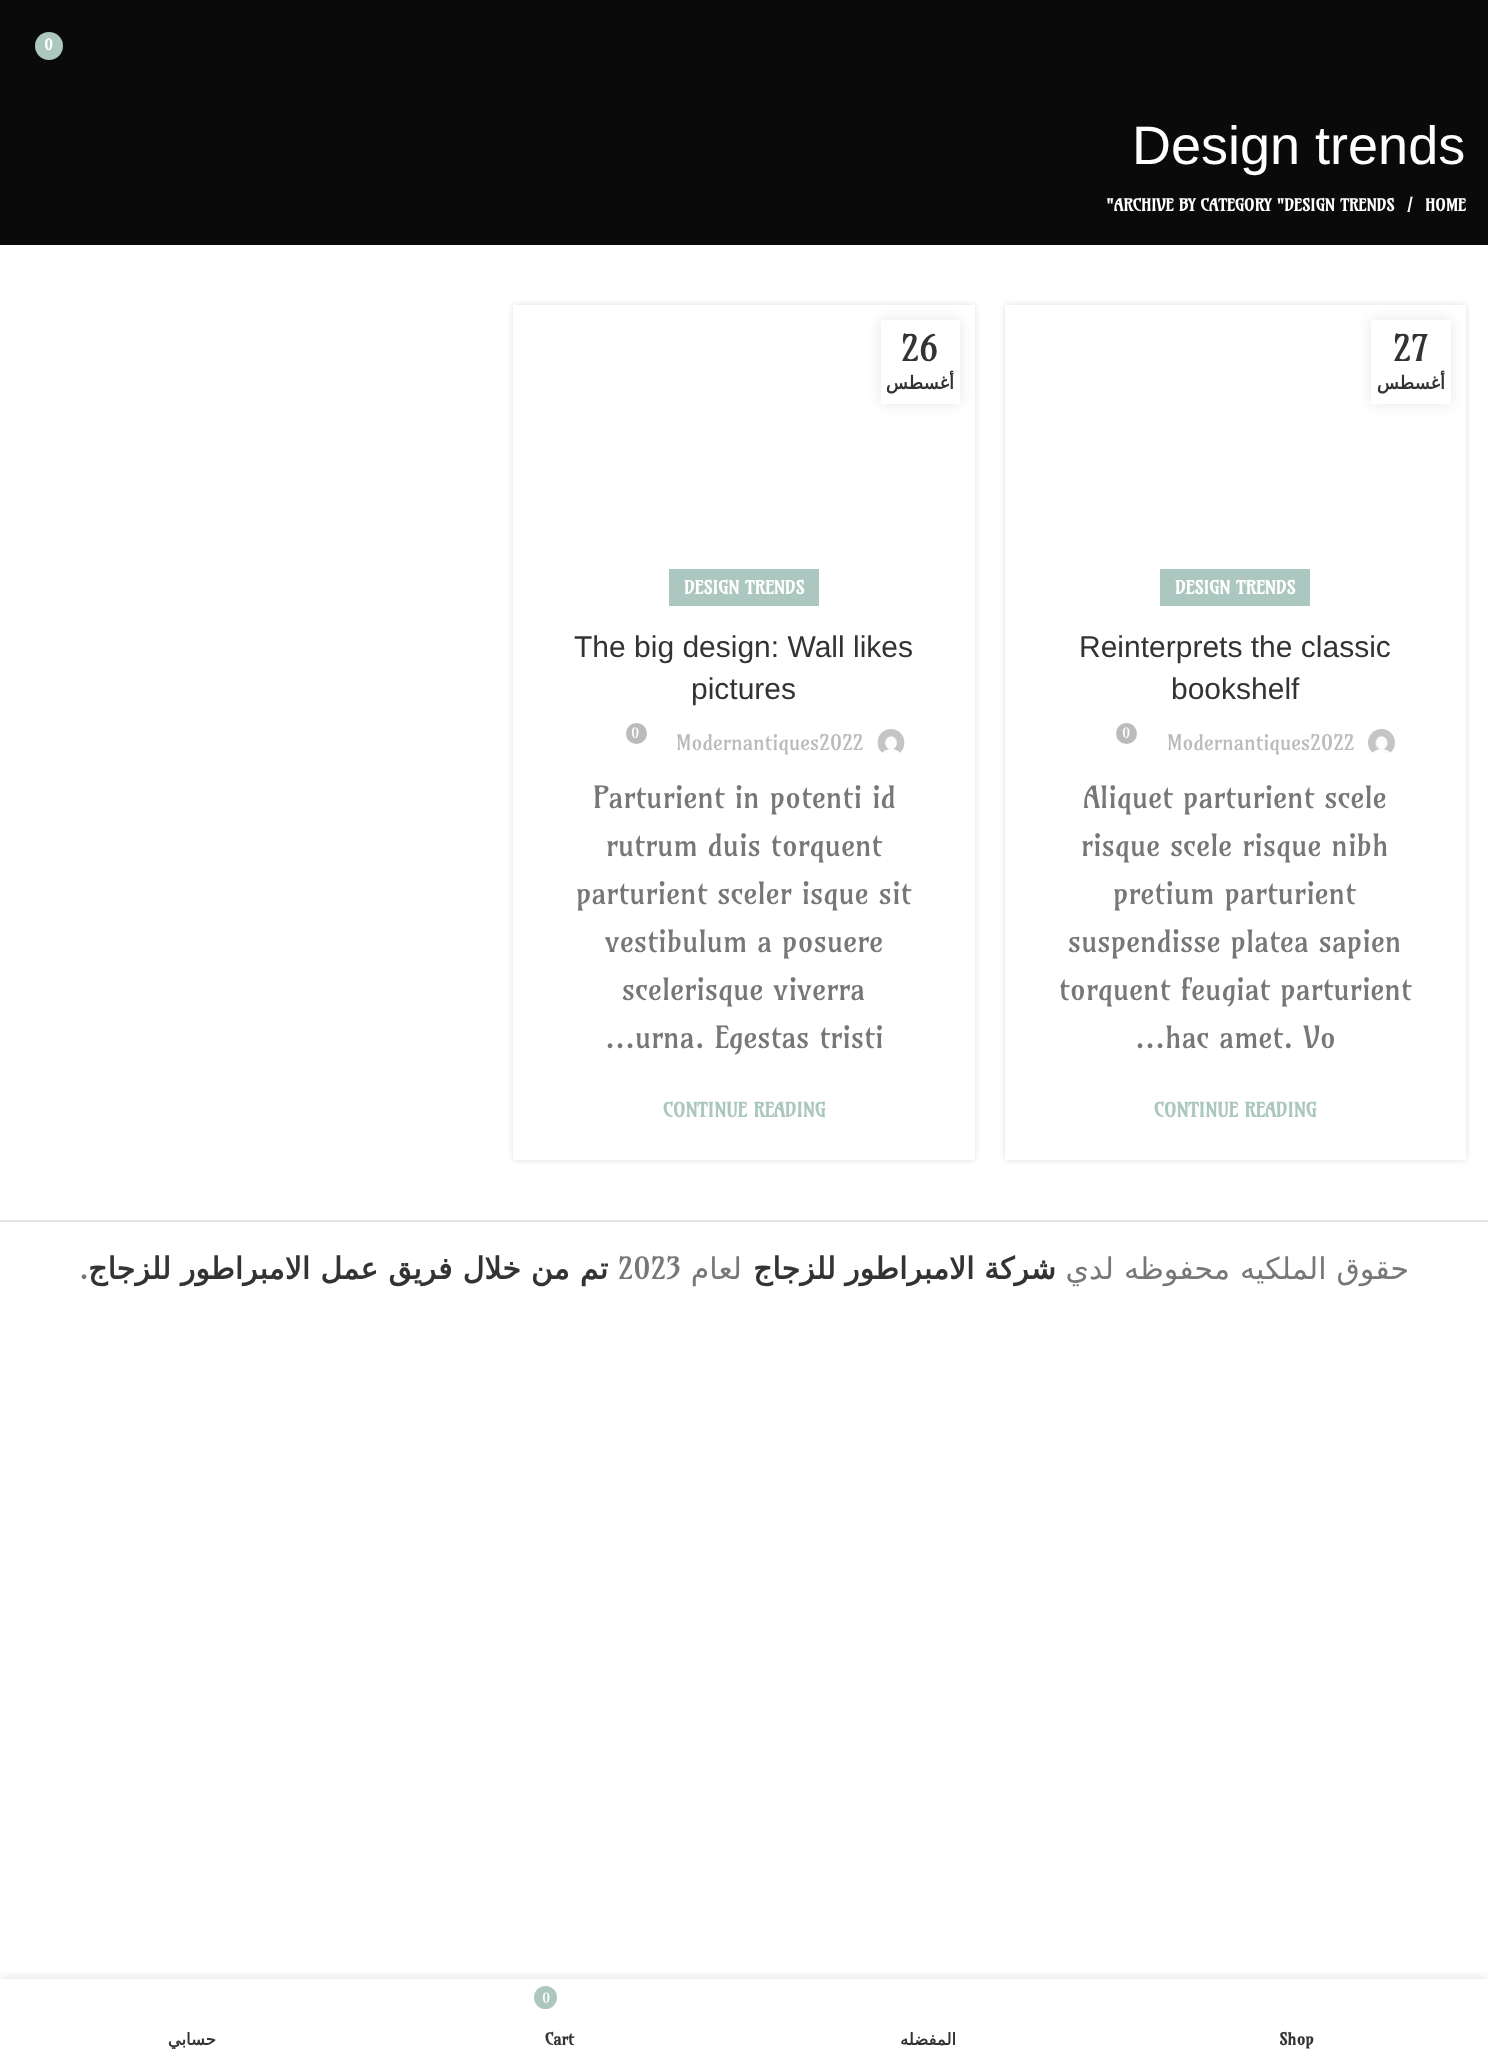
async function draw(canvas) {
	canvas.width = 1488;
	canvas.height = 2061;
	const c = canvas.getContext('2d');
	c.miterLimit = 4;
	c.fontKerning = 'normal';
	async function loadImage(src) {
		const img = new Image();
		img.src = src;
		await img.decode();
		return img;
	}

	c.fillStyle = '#fff';
	c.fillRect(0, 0, 1488, 2061);
	c.fillStyle = '#0a0a0a';
	c.fillRect(0, 0, 1488, 245);
	c.fillStyle = '#acc7bf';
	c.beginPath();
	c.arc(49, 46, 14, 0, 2 * Math.PI);
	c.fill();
	c.font = 'bold 15px Amarante';
	c.fillStyle = '#fff';
	c.fillText('0', 44, 50);
	c.font = '54px Liberation Sans';
	c.fillText('Design trends', 1132, 164);
	c.font = 'bold 16.5px Amarante';
	for (const [text, x, y] of [
		['"ARCHIVE BY CATEGORY "DESIGN TRENDS', 1106, 211],
		['/', 1407, 211],
		['HOME', 1425, 211],
	]) {
		c.fillText(text, x, y);
	}
	c.save();
	c.beginPath();
	c.moveTo(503, 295);
	c.lineTo(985, 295);
	c.lineTo(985, 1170);
	c.lineTo(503, 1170);
	c.closePath();
	c.moveTo(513, 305);
	c.lineTo(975, 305);
	c.lineTo(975, 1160);
	c.lineTo(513, 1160);
	c.closePath();
	c.clip('evenodd');
	c.fillStyle = '#0000001f';
	c.filter = 'blur(3px)';
	c.beginPath();
	c.rect(513, 305, 462, 855);
	c.fill();
	c.filter = 'none';
	c.restore();
	c.fillStyle = '#0000001a';
	c.filter = 'blur(7px)';
	c.beginPath();
	c.rect(881, 320, 79, 84);
	c.fill();
	c.filter = 'none';
	c.fillStyle = '#fff';
	c.fillRect(881, 320, 79, 84);
	c.font = '36px Amarante';
	c.fillStyle = '#333';
	c.fillText('26', 901, 361);
	c.direction = 'rtl';
	c.font = 'bold 18px DejaVu Sans';
	c.fillText('أغسطس', 954, 389);
	c.fillStyle = '#fff';
	c.fillRect(513, 1159, 462, 1);
	c.fillStyle = '#acc7bf';
	c.fillRect(669, 569, 150, 37);
	c.direction = 'ltr';
	c.font = 'bold 18px Amarante';
	c.fillStyle = '#fff';
	c.fillText('DESIGN TRENDS', 684, 594);
	c.font = '30px Liberation Sans';
	c.fillStyle = '#333';
	c.fillText('The big design: Wall likes', 574, 657);
	c.fillText('pictures', 691, 699);
	c.fillStyle = '#bbb';
	c.beginPath();
	c.arc(636.5, 733.5, 10.5, 0, 2 * Math.PI);
	c.fill();
	c.font = '14px Amarante';
	c.fillStyle = '#fff';
	c.fillText('0', 631, 738);
	c.font = '21px Amarante';
	c.fillStyle = '#bbb';
	c.fillText('Modernantiques2022', 676, 750);
	c.drawImage(await loadImage('img1.png'), 877, 729, 28, 25);
	c.font = '30px Amarante';
	c.fillStyle = '#777';
	for (const [text, x, y] of [
		['Parturient in potenti id', 593, 808],
		['rutrum duis torquent', 606, 856],
		['parturient sceler isque sit', 576, 904],
		['vestibulum a posuere', 605, 952],
		['scelerisque viverra', 622, 1000],
		['...urna. Egestas tristi', 605, 1048],
	]) {
		c.fillText(text, x, y);
	}
	c.font = 'bold 19.5px Amarante';
	c.fillStyle = '#acc7bf';
	c.fillText('CONTINUE READING', 663, 1117);
	c.save();
	c.beginPath();
	c.moveTo(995, 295);
	c.lineTo(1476, 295);
	c.lineTo(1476, 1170);
	c.lineTo(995, 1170);
	c.closePath();
	c.moveTo(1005, 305);
	c.lineTo(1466, 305);
	c.lineTo(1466, 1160);
	c.lineTo(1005, 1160);
	c.closePath();
	c.clip('evenodd');
	c.fillStyle = '#0000001f';
	c.filter = 'blur(3px)';
	c.beginPath();
	c.rect(1005, 305, 461, 855);
	c.fill();
	c.filter = 'none';
	c.restore();
	c.fillStyle = '#0000001a';
	c.filter = 'blur(7px)';
	c.beginPath();
	c.rect(1371, 320, 80, 84);
	c.fill();
	c.filter = 'none';
	c.fillStyle = '#fff';
	c.fillRect(1371, 320, 80, 84);
	c.font = '36px Amarante';
	c.fillStyle = '#333';
	c.fillText('27', 1393, 361);
	c.direction = 'rtl';
	c.font = 'bold 18px DejaVu Sans';
	c.fillText('أغسطس', 1445, 389);
	c.fillStyle = '#fff';
	c.fillRect(1005, 588, 461, 572);
	c.fillStyle = '#acc7bf';
	c.fillRect(1160, 569, 150, 37);
	c.direction = 'ltr';
	c.font = 'bold 18px Amarante';
	c.fillStyle = '#fff';
	c.fillText('DESIGN TRENDS', 1175, 594);
	c.font = '30px Liberation Sans';
	c.fillStyle = '#333';
	c.fillText('Reinterprets the classic', 1079, 657);
	c.fillText('bookshelf', 1171, 699);
	c.fillStyle = '#bbb';
	c.beginPath();
	c.arc(1126.5, 733.5, 10.5, 0, 2 * Math.PI);
	c.fill();
	c.font = '14px Amarante';
	c.fillStyle = '#fff';
	c.fillText('0', 1122, 738);
	c.font = '21px Amarante';
	c.fillStyle = '#bbb';
	c.fillText('Modernantiques2022', 1167, 750);
	c.drawImage(await loadImage('img2.png'), 1368, 729, 27, 25);
	c.font = '30px Amarante';
	c.fillStyle = '#777';
	for (const [text, x, y] of [
		['Aliquet parturient scele', 1083, 808],
		['risque scele risque nibh', 1081, 856],
		['pretium parturient', 1113, 904],
		['suspendisse platea sapien', 1068, 952],
		['torquent feugiat parturient', 1059, 1000],
		['...hac amet. Vo', 1135, 1048],
	]) {
		c.fillText(text, x, y);
	}
	c.font = 'bold 19.5px Amarante';
	c.fillStyle = '#acc7bf';
	c.fillText('CONTINUE READING', 1154, 1117);
	c.fillStyle = '#e4e4e4';
	c.fillRect(0, 1220, 1488, 2);
	c.font = '30px Amarante';
	c.fillStyle = '#777';
	c.fillText('.', 79, 1279);
	c.wordSpacing = '0.5px';
	c.direction = 'rtl';
	c.font = 'bold 30px DejaVu Sans';
	c.fillStyle = '#333';
	c.fillText('تم من خلال فريق عمل الامبراطور للزجاج', 608, 1279);
	c.wordSpacing = '0px';
	c.direction = 'ltr';
	c.font = '30px Amarante';
	c.fillStyle = '#777';
	c.fillText('2023', 618, 1279);
	c.direction = 'rtl';
	c.font = '30px DejaVu Sans';
	c.fillText('لعام', 742, 1279);
	c.font = 'bold 30px DejaVu Sans';
	c.fillStyle = '#333';
	c.fillText('شركة الامبراطور للزجاج', 1056, 1279);
	c.wordSpacing = '0.5px';
	c.font = '30px DejaVu Sans';
	c.fillStyle = '#777';
	c.fillText('حقوق الملكيه محفوظه لدي', 1409, 1279);
	c.save();
	c.beginPath();
	c.rect(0, 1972, 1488, 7);
	c.clip();
	c.fillStyle = '#0000001f';
	c.filter = 'blur(7px)';
	c.beginPath();
	c.rect(0, 1979, 1488, 82);
	c.fill();
	c.filter = 'none';
	c.restore();
	c.wordSpacing = '0px';
	c.font = 'bold 16.5px DejaVu Sans';
	c.fillStyle = '#333';
	c.fillText('حسابي', 216, 2045);
	c.fillStyle = '#acc7bf';
	c.beginPath();
	c.arc(545.5, 1997.5, 11.5, 0, 2 * Math.PI);
	c.fill();
	c.direction = 'ltr';
	c.font = '14px Amarante';
	c.fillStyle = '#fff';
	c.fillText('0', 542, 2003);
	c.font = 'bold 16.5px Amarante';
	c.fillStyle = '#333';
	c.fillText('Cart', 545, 2045);
	c.direction = 'rtl';
	c.font = 'bold 16.5px DejaVu Sans';
	c.fillText('المفضله', 956, 2045);
	c.direction = 'ltr';
	c.font = 'bold 16.5px Amarante';
	c.fillText('Shop', 1279, 2045);
}

draw(document.querySelector('canvas'));
